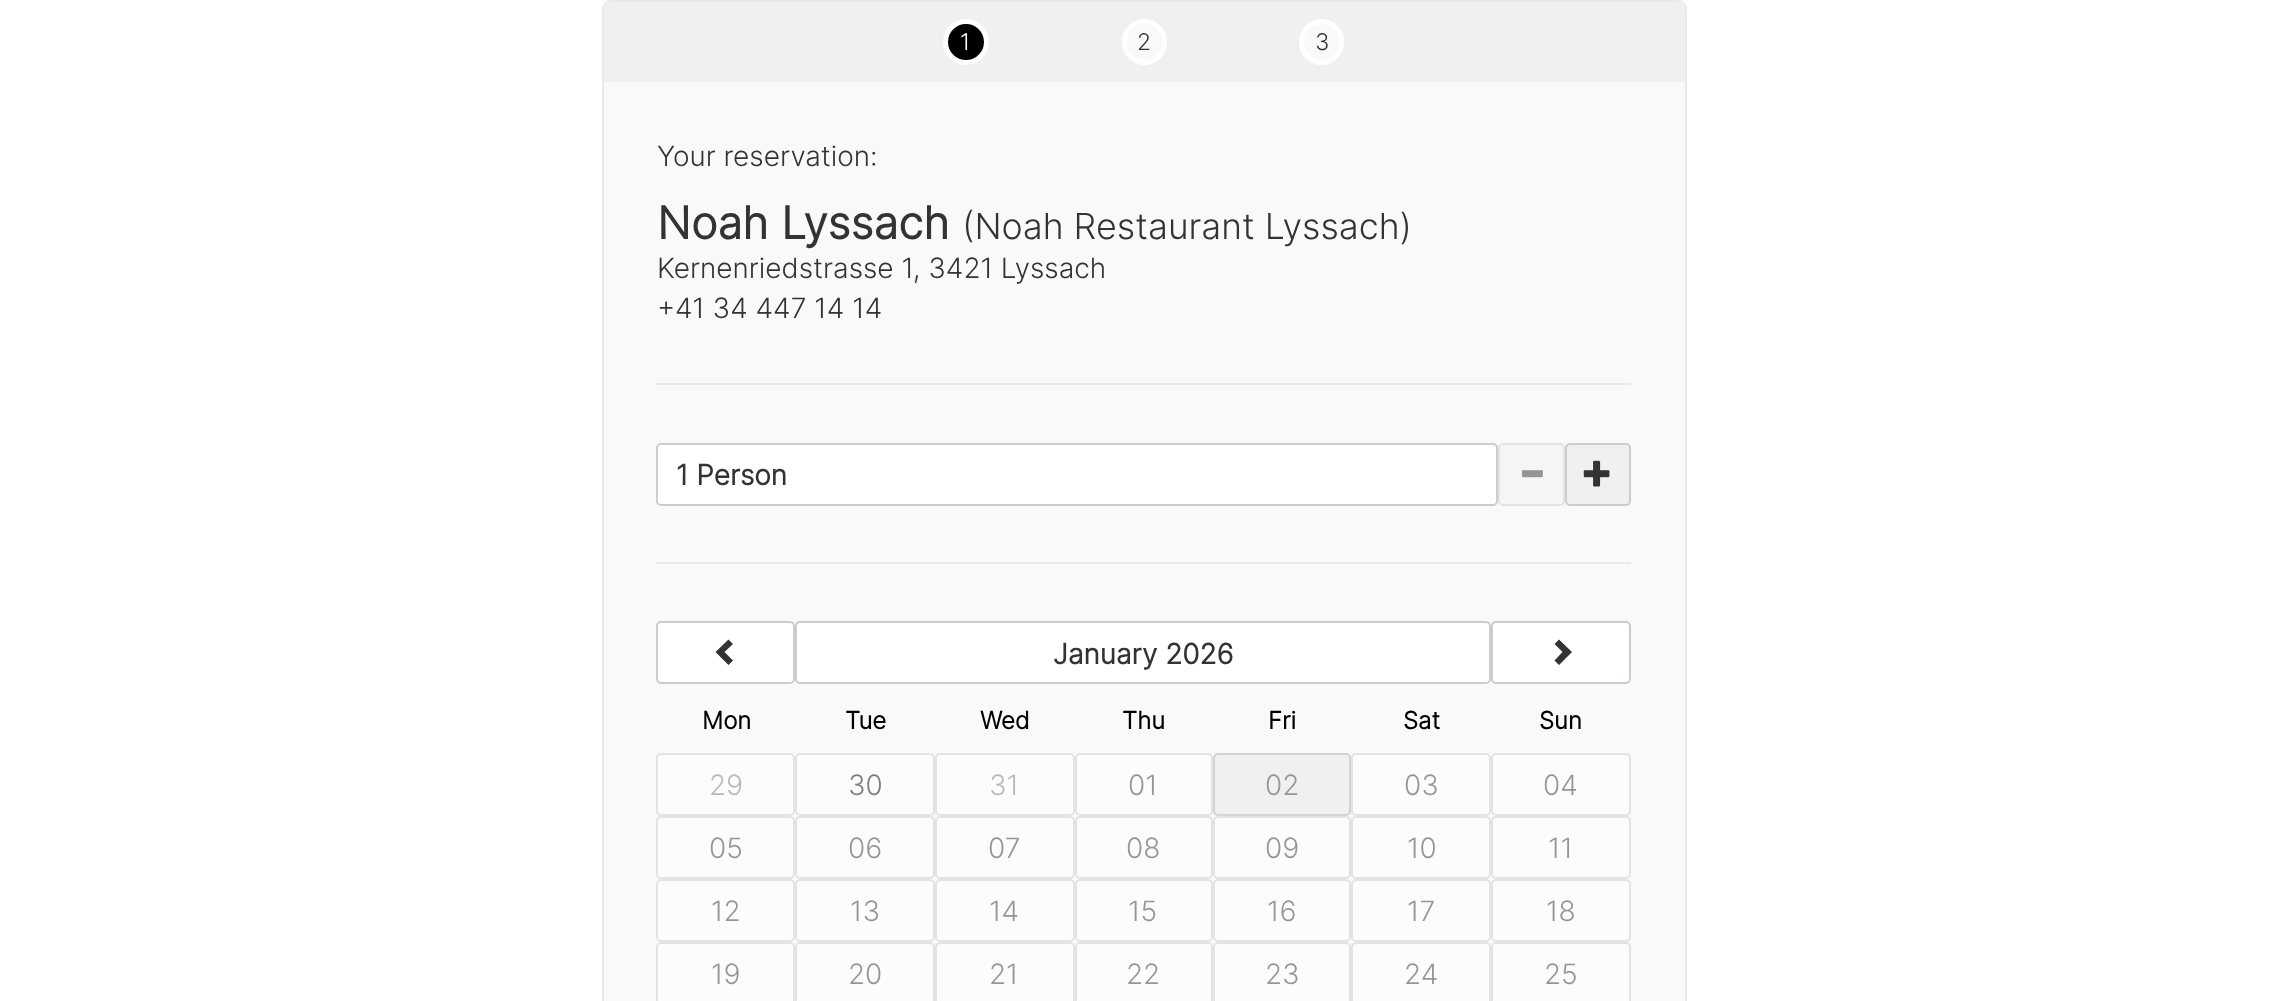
async function draw(canvas) {
	canvas.width = 2287;
	canvas.height = 1001;
	const c = canvas.getContext('2d');
	c.miterLimit = 4;
	c.fontKerning = 'normal';
	async function loadImage(src) {
		const img = new Image();
		img.src = src;
		await img.decode();
		return img;
	}

	c.fillStyle = '#fff';
	c.fillRect(0, 0, 2287, 1001);
	c.fillStyle = '#fbf9f7';
	c.beginPath();
	c.roundRect(603, 1, 1083, 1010, 8);
	c.fill();
	c.strokeStyle = '#e9e9e9';
	c.lineWidth = 2;
	c.stroke();
	c.fillStyle = '#f0f0f0';
	c.fillRect(604, 2, 1081, 80);
	c.fillStyle = '#000';
	c.beginPath();
	c.arc(966, 42, 20.5, 0, 2 * Math.PI);
	c.fill();
	c.strokeStyle = '#fff';
	c.lineWidth = 5;
	c.stroke();
	c.font = '300 23px Inter';
	c.fillStyle = '#fff';
	c.fillText('1', 960, 50);
	c.fillStyle = '#fbf9f7';
	c.beginPath();
	c.roundRect(1124.5, 21.5, 40, 41, 20);
	c.fill();
	c.stroke();
	c.fillStyle = '#333';
	c.fillText('2', 1137, 50);
	c.fillStyle = '#fbf9f7';
	c.beginPath();
	c.roundRect(1301.5, 21.5, 40, 41, 20);
	c.fill();
	c.stroke();
	c.fillStyle = '#333';
	c.fillText('3', 1315, 50);
	c.font = '300 28px Inter';
	c.fillText('Your reservation:', 657, 166);
	c.font = 'bold 44.75px Inter';
	c.fillText('Noah Lyssach', 657, 239);
	c.font = '300 35.8px Inter';
	c.fillText('(Noah Restaurant Lyssach)', 962, 239);
	c.font = '300 28px Inter';
	c.fillText('Kernenriedstrasse 1, 3421 Lyssach', 657, 278);
	c.fillText('+41 34 447 14 14', 657, 318);
	c.fillStyle = '#e9e9e9';
	c.fillRect(656, 383, 975, 2);
	c.fillStyle = '#fff';
	c.beginPath();
	c.roundRect(657, 444, 840, 61, 4);
	c.fill();
	c.strokeStyle = '#ccc';
	c.lineWidth = 2;
	c.stroke();
	c.font = 'bold 28px Inter';
	c.fillStyle = '#333';
	c.fillText('1 Person', 676, 485);
	c.fillStyle = '#f6f5f4';
	c.beginPath();
	c.roundRect(1499, 444, 65, 61, 4);
	c.fill();
	c.strokeStyle = '#e4e3e2';
	c.stroke();
	c.drawImage(await loadImage('img1.png'), 1521, 470, 22, 8);
	c.fillStyle = '#f0f0f0';
	c.beginPath();
	c.roundRect(1566, 444, 64, 61, 4);
	c.fill();
	c.strokeStyle = '#ccc';
	c.stroke();
	c.drawImage(await loadImage('img2.png'), 1583, 460, 27, 27);
	c.fillStyle = '#e9e9e9';
	c.fillRect(656, 562, 975, 2);
	c.fillStyle = '#fff';
	c.beginPath();
	c.roundRect(657, 622, 137, 61, 4);
	c.fill();
	c.stroke();
	c.fillStyle = '#333';
	c.beginPath();
	c.moveTo(733, 644);
	c.lineTo(724.5, 652);
	c.lineTo(733, 660.5);
	c.lineTo(728.5, 665);
	c.lineTo(715.5, 652);
	c.lineTo(728.5, 639.5);
	c.closePath();
	c.fill();
	c.fillStyle = '#fff';
	c.beginPath();
	c.roundRect(796, 622, 694, 61, 4);
	c.fill();
	c.stroke();
	c.fillStyle = '#333';
	c.fillText('January 2026', 1053, 664);
	c.fillStyle = '#fff';
	c.beginPath();
	c.roundRect(1492, 622, 138, 61, 4);
	c.fill();
	c.stroke();
	c.fillStyle = '#333';
	c.beginPath();
	c.moveTo(1572, 652);
	c.lineTo(1559, 665);
	c.lineTo(1554.5, 660.5);
	c.lineTo(1562.5, 652);
	c.lineTo(1554.5, 644);
	c.lineTo(1559, 639.5);
	c.closePath();
	c.fill();
	c.font = 'bold 24px Inter';
	c.fillStyle = '#000';
	for (const [text, x, y] of [
		['Mon', 702, 729],
		['Tue', 845, 729],
		['Wed', 980, 729],
		['Thu', 1122, 729],
		['Fri', 1268, 729],
		['Sat', 1403, 729],
		['Sun', 1539, 729],
	]) {
		c.fillText(text, x, y);
	}
	c.fillStyle = '#fdfcfb';
	c.beginPath();
	c.roundRect(657, 754, 137, 61, 4);
	c.fill();
	c.strokeStyle = '#e4e3e2';
	c.stroke();
	c.font = '300 28px Inter';
	c.fillStyle = '#b9b8b7';
	c.fillText('29', 709, 795);
	c.fillStyle = '#fdfcfb';
	c.beginPath();
	c.roundRect(796, 754, 138, 61, 4);
	c.fill();
	c.stroke();
	c.fillStyle = '#7e7d7c';
	c.fillText('30', 848, 795);
	c.fillStyle = '#fdfcfb';
	c.beginPath();
	c.roundRect(936, 754, 138, 61, 4);
	c.fill();
	c.stroke();
	c.fillStyle = '#b9b8b7';
	c.fillText('31', 989, 795);
	c.fillStyle = '#fdfcfb';
	c.beginPath();
	c.roundRect(1076, 754, 136, 61, 4);
	c.fill();
	c.stroke();
	c.fillStyle = '#979695';
	c.fillText('01', 1128, 795);
	c.fillStyle = '#f1f0ef';
	c.beginPath();
	c.roundRect(1214, 754, 136, 61, 4);
	c.fill();
	c.strokeStyle = '#d4d3d2';
	c.stroke();
	c.fillStyle = '#979695';
	c.fillText('02', 1265, 795);
	c.fillStyle = '#fdfcfb';
	c.beginPath();
	c.roundRect(1352, 754, 138, 61, 4);
	c.fill();
	c.strokeStyle = '#e4e3e2';
	c.stroke();
	c.fillStyle = '#979695';
	c.fillText('03', 1404, 795);
	c.fillStyle = '#fdfcfb';
	c.beginPath();
	c.roundRect(1492, 754, 138, 61, 4);
	c.fill();
	c.stroke();
	c.fillStyle = '#979695';
	c.fillText('04', 1543, 795);
	c.fillStyle = '#fdfcfb';
	c.beginPath();
	c.roundRect(657, 817, 137, 61, 4);
	c.fill();
	c.stroke();
	c.fillStyle = '#979695';
	c.fillText('05', 709, 858);
	c.fillStyle = '#fdfcfb';
	c.beginPath();
	c.roundRect(796, 817, 138, 61, 4);
	c.fill();
	c.stroke();
	c.fillStyle = '#979695';
	c.fillText('06', 848, 858);
	c.fillStyle = '#fdfcfb';
	c.beginPath();
	c.roundRect(936, 817, 138, 61, 4);
	c.fill();
	c.stroke();
	c.fillStyle = '#979695';
	c.fillText('07', 988, 858);
	c.fillStyle = '#fdfcfb';
	c.beginPath();
	c.roundRect(1076, 817, 136, 61, 4);
	c.fill();
	c.stroke();
	c.fillStyle = '#979695';
	c.fillText('08', 1126, 858);
	c.fillStyle = '#fdfcfb';
	c.beginPath();
	c.roundRect(1214, 817, 136, 61, 4);
	c.fill();
	c.stroke();
	c.fillStyle = '#979695';
	c.fillText('09', 1265, 858);
	c.fillStyle = '#fdfcfb';
	c.beginPath();
	c.roundRect(1352, 817, 138, 61, 4);
	c.fill();
	c.stroke();
	c.fillStyle = '#979695';
	c.fillText('10', 1407, 858);
	c.fillStyle = '#fdfcfb';
	c.beginPath();
	c.roundRect(1492, 817, 138, 61, 4);
	c.fill();
	c.stroke();
	c.fillStyle = '#979695';
	c.fillText('11', 1548, 858);
	c.fillStyle = '#fdfcfb';
	c.beginPath();
	c.roundRect(657, 880, 137, 61, 4);
	c.fill();
	c.stroke();
	c.fillStyle = '#979695';
	c.fillText('12', 711, 921);
	c.fillStyle = '#fdfcfb';
	c.beginPath();
	c.roundRect(796, 880, 138, 61, 4);
	c.fill();
	c.stroke();
	c.fillStyle = '#979695';
	c.fillText('13', 850, 921);
	c.fillStyle = '#fdfcfb';
	c.beginPath();
	c.roundRect(936, 880, 138, 61, 4);
	c.fill();
	c.stroke();
	c.fillStyle = '#979695';
	c.fillText('14', 989, 921);
	c.fillStyle = '#fdfcfb';
	c.beginPath();
	c.roundRect(1076, 880, 136, 61, 4);
	c.fill();
	c.stroke();
	c.fillStyle = '#979695';
	c.fillText('15', 1128, 921);
	c.fillStyle = '#fdfcfb';
	c.beginPath();
	c.roundRect(1214, 880, 136, 61, 4);
	c.fill();
	c.stroke();
	c.fillStyle = '#979695';
	c.fillText('16', 1267, 921);
	c.fillStyle = '#fdfcfb';
	c.beginPath();
	c.roundRect(1352, 880, 138, 61, 4);
	c.fill();
	c.stroke();
	c.fillStyle = '#979695';
	c.fillText('17', 1407, 921);
	c.fillStyle = '#fdfcfb';
	c.beginPath();
	c.roundRect(1492, 880, 138, 61, 4);
	c.fill();
	c.stroke();
	c.fillStyle = '#979695';
	c.fillText('18', 1546, 921);
	c.fillStyle = '#fdfcfb';
	c.beginPath();
	c.roundRect(657, 943, 137, 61, 4);
	c.fill();
	c.stroke();
	c.fillStyle = '#979695';
	c.fillText('19', 711, 984);
	c.fillStyle = '#fdfcfb';
	c.beginPath();
	c.roundRect(796, 943, 138, 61, 4);
	c.fill();
	c.stroke();
	c.fillStyle = '#979695';
	c.fillText('20', 848, 984);
	c.fillStyle = '#fdfcfb';
	c.beginPath();
	c.roundRect(936, 943, 138, 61, 4);
	c.fill();
	c.stroke();
	c.fillStyle = '#979695';
	c.fillText('21', 989, 984);
	c.fillStyle = '#fdfcfb';
	c.beginPath();
	c.roundRect(1076, 943, 136, 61, 4);
	c.fill();
	c.stroke();
	c.fillStyle = '#979695';
	c.fillText('22', 1126, 984);
	c.fillStyle = '#fdfcfb';
	c.beginPath();
	c.roundRect(1214, 943, 136, 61, 4);
	c.fill();
	c.stroke();
	c.fillStyle = '#979695';
	c.fillText('23', 1265, 984);
	c.fillStyle = '#fdfcfb';
	c.beginPath();
	c.roundRect(1352, 943, 138, 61, 4);
	c.fill();
	c.stroke();
	c.fillStyle = '#979695';
	c.fillText('24', 1404, 984);
	c.fillStyle = '#fdfcfb';
	c.beginPath();
	c.roundRect(1492, 943, 138, 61, 4);
	c.fill();
	c.stroke();
	c.fillStyle = '#979695';
	c.fillText('25', 1544, 984);
}

draw(document.querySelector('canvas'));
